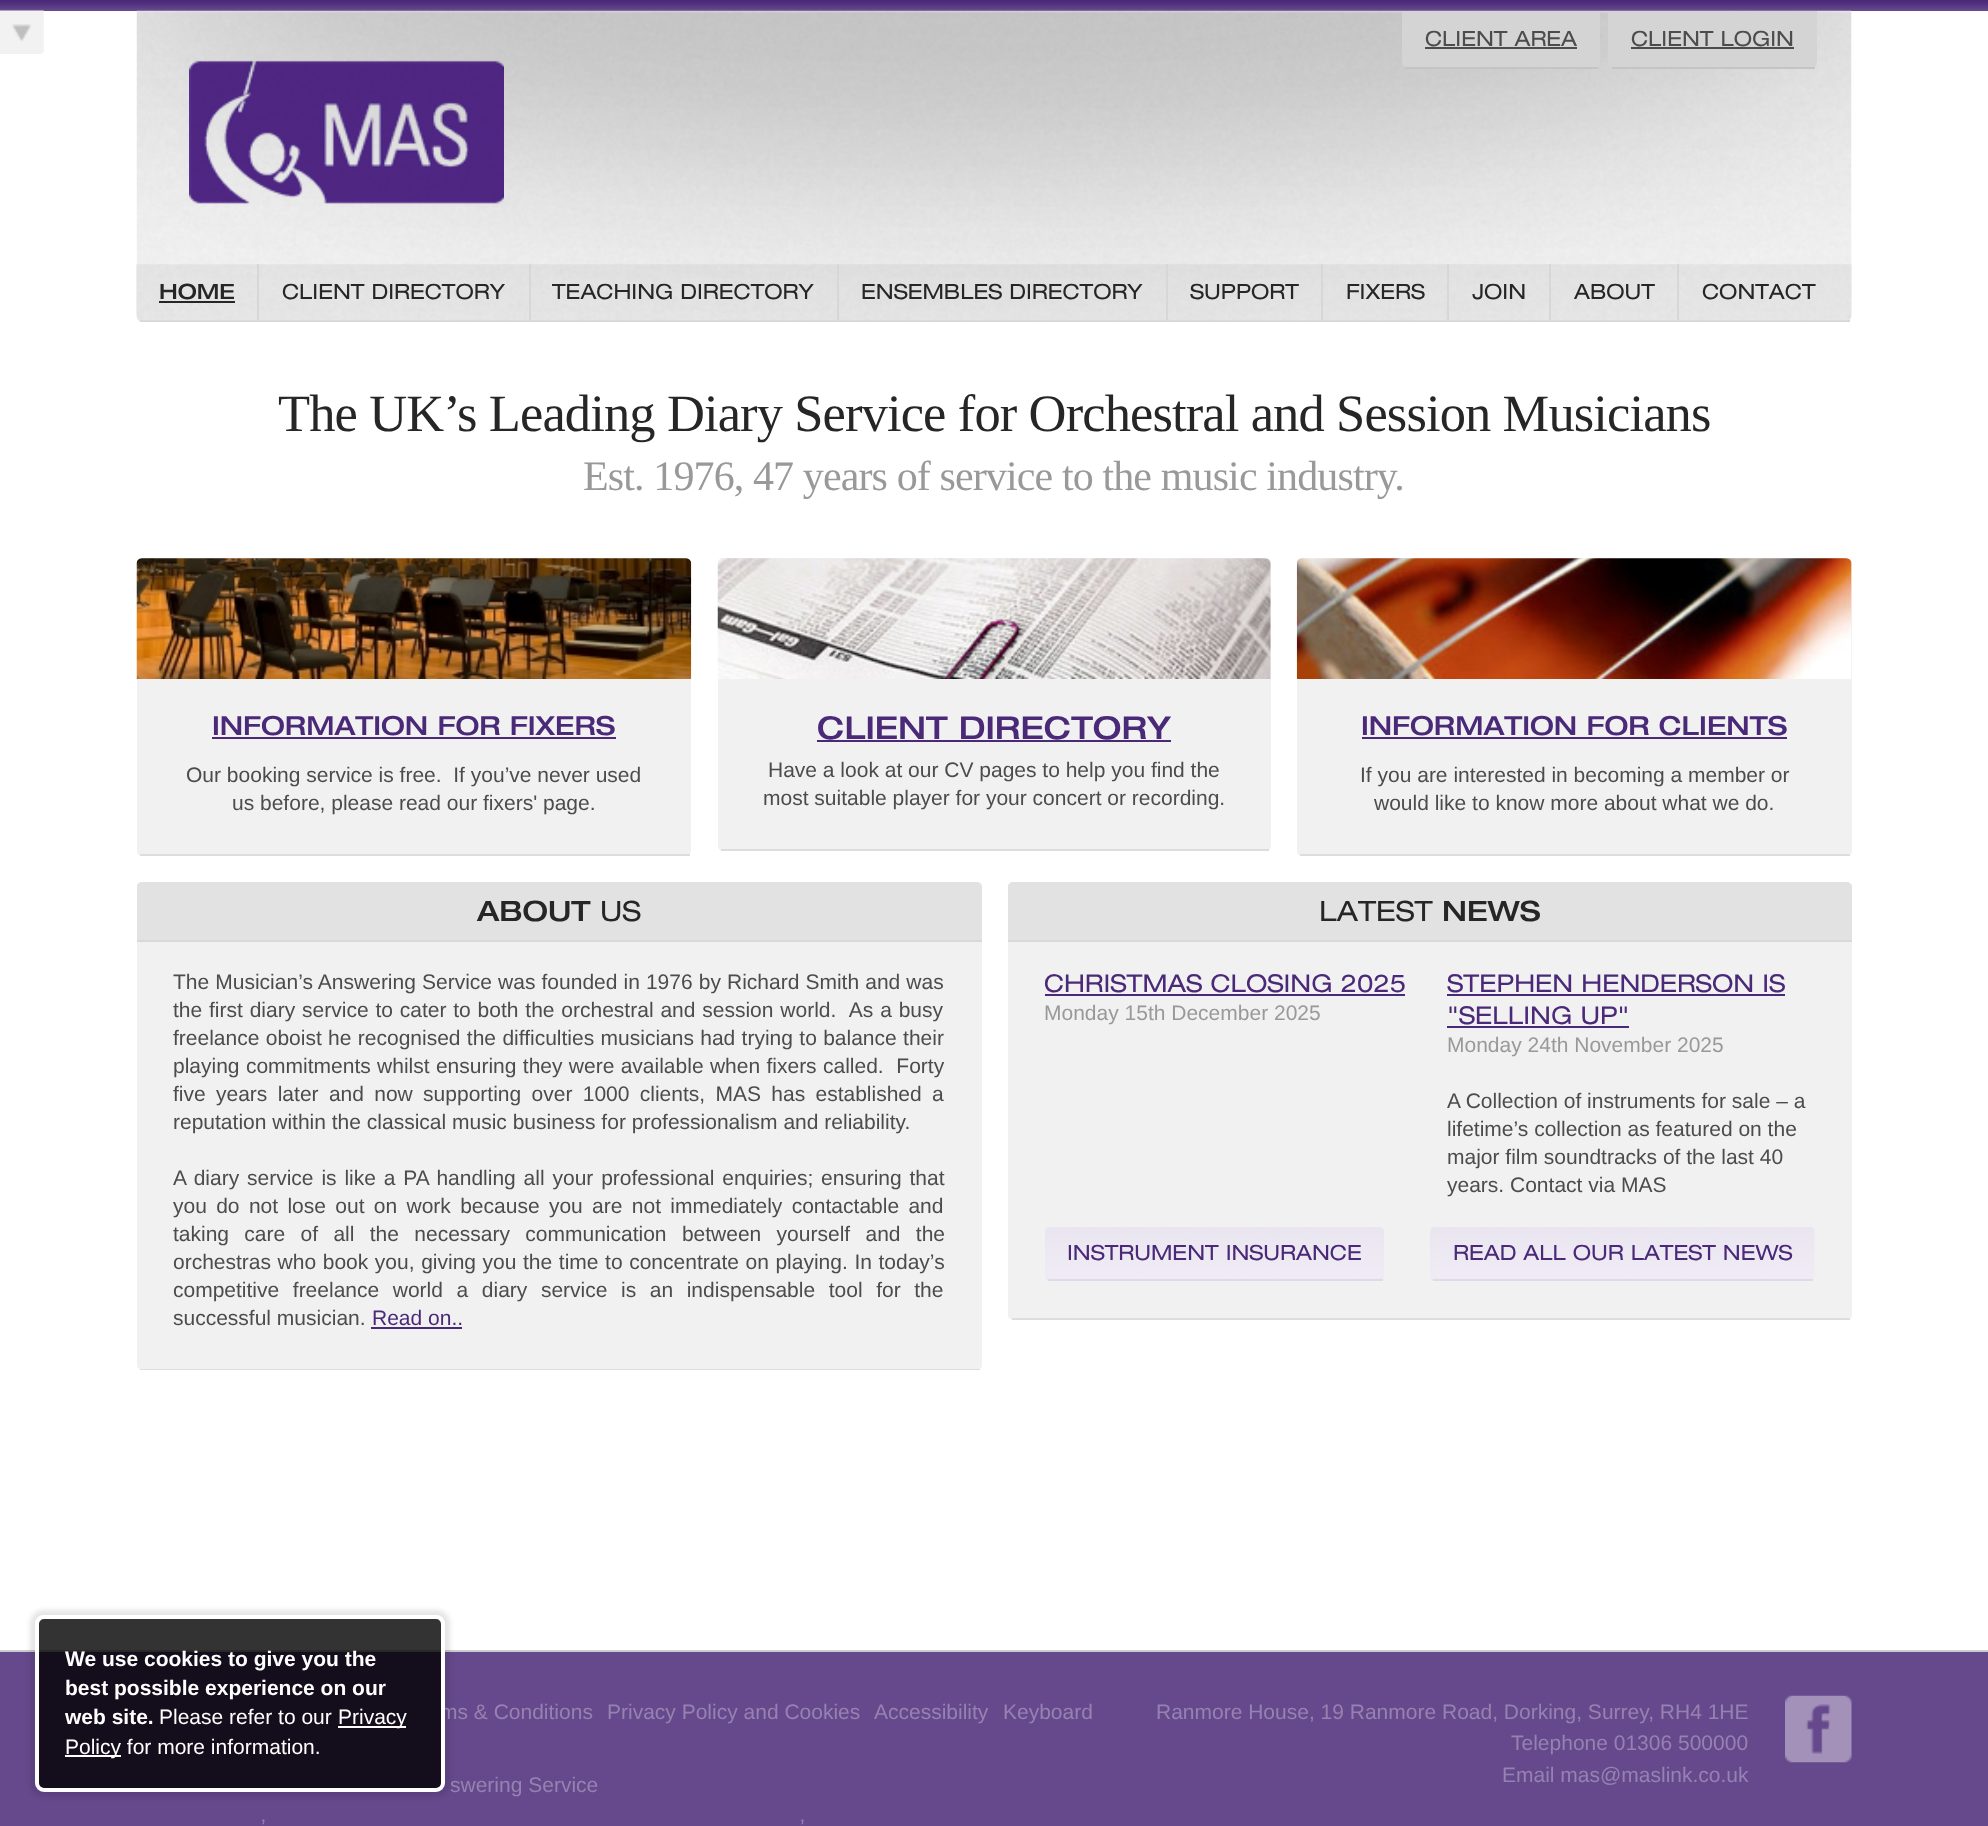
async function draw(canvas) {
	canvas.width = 1988;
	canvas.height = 1826;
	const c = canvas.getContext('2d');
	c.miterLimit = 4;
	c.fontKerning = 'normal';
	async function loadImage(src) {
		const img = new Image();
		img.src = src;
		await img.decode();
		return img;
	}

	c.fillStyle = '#66498d';
	c.fillRect(0, 0, 1988, 1826);
	c.drawImage(await loadImage('img1.png'), 0, 0, 1988, 9);
	c.fillStyle = '#fff';
	c.fillRect(0, 11, 1988, 1639);
	c.drawImage(await loadImage('img2.png'), 0, 10, 44, 44);
	c.drawImage(await loadImage('img3.png'), 136, 10, 1716, 312);
	c.fillStyle = '#d7d7d7';
	c.fillRect(140, 320, 1710, 2);
	c.fillStyle = '#d4d4d4';
	c.beginPath();
	c.roundRect(1402, 11, 198, 57, [0, 0, 5, 5]);
	c.fill();
	c.fillStyle = '#c4c4c4';
	c.fillRect(1405, 67, 193, 2);
	c.font = '21px Helvetica Neue';
	c.fillStyle = '#4c4c4c';
	c.fillText('CLIENT AREA', 1425, 46);
	c.fillRect(1425, 47, 152, 2);
	c.fillStyle = '#d4d4d4';
	c.beginPath();
	c.roundRect(1608, 11, 209, 57, [0, 0, 5, 5]);
	c.fill();
	c.fillStyle = '#c4c4c4';
	c.fillRect(1612, 67, 203, 2);
	c.fillStyle = '#4c4c4c';
	c.fillText('CLIENT LOGIN', 1631, 46);
	c.fillRect(1631, 47, 163, 2);
	c.drawImage(await loadImage('img4.png'), 189, 60, 315, 144);
	c.drawImage(await loadImage('img5.png'), 136, 264, 1716, 57);
	c.font = '500 21px Helvetica Neue';
	c.fillStyle = '#262626';
	c.fillText('HOME', 159, 299);
	c.fillRect(159, 301, 76, 2);
	c.fillStyle = '#d7d7d7';
	c.fillRect(257, 264, 2, 56);
	c.font = '21px Helvetica Neue';
	c.fillStyle = '#262626';
	c.fillText('CLIENT DIRECTORY', 282, 299);
	c.fillStyle = '#d7d7d7';
	c.fillRect(529, 264, 2, 56);
	c.fillStyle = '#262626';
	c.fillText('TEACHING DIRECTORY', 552, 299);
	c.fillStyle = '#d7d7d7';
	c.fillRect(837, 264, 2, 56);
	c.fillStyle = '#262626';
	c.fillText('ENSEMBLES DIRECTORY', 861, 299);
	c.fillStyle = '#d7d7d7';
	c.fillRect(1166, 264, 2, 56);
	c.fillStyle = '#262626';
	c.fillText('SUPPORT', 1190, 299);
	c.fillStyle = '#d7d7d7';
	c.fillRect(1321, 264, 2, 56);
	c.fillStyle = '#262626';
	c.fillText('FIXERS', 1346, 299);
	c.fillStyle = '#d7d7d7';
	c.fillRect(1447, 264, 2, 56);
	c.fillStyle = '#262626';
	c.fillText('JOIN', 1472, 299);
	c.fillStyle = '#d7d7d7';
	c.fillRect(1549, 264, 2, 56);
	c.fillStyle = '#262626';
	c.fillText('ABOUT', 1574, 299);
	c.fillStyle = '#d7d7d7';
	c.fillRect(1677, 264, 2, 56);
	c.fillStyle = '#262626';
	c.fillText('CONTACT', 1702, 299);
	c.letterSpacing = '-0.88px';
	c.font = '52.5px Liberation Serif';
	c.fillText('The UK’s Leading Diary Service for Orchestral and Session Musicians', 278, 431);
	c.font = '42px Liberation Serif';
	c.fillStyle = '#999';
	c.fillText('Est. 1976, 47 years of service to the music industry.', 583, 490);
	c.fillStyle = '#f1f1f1';
	c.beginPath();
	c.roundRect(137, 558, 554, 298, 5);
	c.fill();
	c.fillStyle = '#ddd';
	c.fillRect(140, 854, 550, 2);
	c.drawImage(await loadImage('img6.png'), 136, 558, 556, 121);
	c.letterSpacing = '0px';
	c.font = '500 26.25px Helvetica Neue';
	c.fillStyle = '#4b2979';
	c.fillText('INFORMATION FOR FIXERS', 212, 735);
	c.fillRect(212, 737, 404, 2);
	c.font = '21px Liberation Sans';
	c.fillStyle = '#4c4c4c';
	c.fillText('Our booking service is free.  If you’ve never used', 186, 782);
	c.fillText('us before, please read our fixers\' page.', 232, 810);
	c.fillStyle = '#f1f1f1';
	c.beginPath();
	c.roundRect(718, 558, 553, 293, 5);
	c.fill();
	c.fillStyle = '#ddd';
	c.fillRect(721, 849, 548, 2);
	c.drawImage(await loadImage('img7.png'), 717, 558, 554, 121);
	c.font = '500 31.5px Helvetica Neue';
	c.fillStyle = '#4b2979';
	c.fillText('CLIENT DIRECTORY', 817, 739);
	c.fillRect(817, 740, 354, 2);
	c.font = '21px Liberation Sans';
	c.fillStyle = '#4c4c4c';
	c.fillText('Have a look at our CV pages to help you find the', 768, 777);
	c.fillText('most suitable player for your concert or recording.', 763, 805);
	c.fillStyle = '#f1f1f1';
	c.beginPath();
	c.roundRect(1297, 558, 555, 298, 5);
	c.fill();
	c.fillStyle = '#ddd';
	c.fillRect(1300, 854, 550, 2);
	c.drawImage(await loadImage('img8.png'), 1296, 558, 556, 121);
	c.font = '500 26.25px Helvetica Neue';
	c.fillStyle = '#4b2979';
	c.fillText('INFORMATION FOR CLIENTS', 1361, 735);
	c.fillRect(1362, 737, 425, 2);
	c.font = '21px Liberation Sans';
	c.fillStyle = '#4c4c4c';
	c.fillText('If you are interested in becoming a member or', 1360, 782);
	c.fillText('would like to know more about what we do.', 1374, 810);
	c.fillStyle = '#f1f1f1';
	c.beginPath();
	c.roundRect(137, 882, 845, 488, 5);
	c.fill();
	c.fillStyle = '#ddd';
	c.fillRect(140, 1369, 840, 1);
	c.fillStyle = '#e2e2e2';
	c.beginPath();
	c.moveTo(142, 882);
	c.bezierCurveTo(140, 882, 138, 883, 137, 885);
	c.lineTo(137, 942);
	c.lineTo(982, 942);
	c.lineTo(982, 887);
	c.bezierCurveTo(982, 884, 979, 882, 976, 882);
	c.closePath();
	c.fill();
	c.fillStyle = '#d9d9d9';
	c.fillRect(137, 940, 845, 2);
	c.font = '500 28px Helvetica Neue';
	c.fillStyle = '#262626';
	c.fillText('ABOUT', 477, 921);
	c.font = '28px Helvetica Neue';
	c.fillText('US', 600, 921);
	c.wordSpacing = '0.25px';
	c.font = '21px Liberation Sans';
	c.fillStyle = '#4c4c4c';
	c.fillText('The Musician’s Answering Service was founded in 1976 by Richard Smith and was', 173, 989);
	c.wordSpacing = '1px';
	c.fillText('the first diary service to cater to both the orchestral and session world.  As a busy', 173, 1017);
	c.wordSpacing = '0.5px';
	c.fillText('freelance oboist he recognised the difficulties musicians had trying to balance their', 173, 1045);
	c.fillText('playing commitments whilst ensuring they were available when fixers called.  Forty', 173, 1073);
	c.wordSpacing = '4.5px';
	c.fillText('five years later and now supporting over 1000 clients, MAS has established a', 173, 1101);
	c.wordSpacing = '0px';
	c.fillText('reputation within the classical music business for professionalism and reliability.', 173, 1129);
	c.wordSpacing = '2px';
	c.fillText('A diary service is like a PA handling all your professional enquiries; ensuring that', 173, 1185);
	c.wordSpacing = '3.5px';
	c.fillText('you do not lose out on work because you are not immediately contactable and', 173, 1213);
	c.wordSpacing = '9.5px';
	c.fillText('taking care of all the necessary communication between yourself and the', 173, 1241);
	c.wordSpacing = '0.75px';
	c.fillText('orchestras who book you, giving you the time to concentrate on playing. In today’s', 173, 1269);
	c.wordSpacing = '7.75px';
	c.fillText('competitive freelance world a diary service is an indispensable tool for the', 173, 1297);
	c.wordSpacing = '0px';
	c.fillText('successful musician.', 173, 1325);
	c.fillStyle = '#4b2979';
	c.fillText('Read on..', 372, 1325);
	c.fillRect(371, 1327, 91, 2);
	c.fillStyle = '#f1f1f1';
	c.beginPath();
	c.roundRect(1008, 882, 844, 438, 5);
	c.fill();
	c.fillStyle = '#ddd';
	c.fillRect(1012, 1318, 838, 2);
	c.fillStyle = '#e2e2e2';
	c.beginPath();
	c.moveTo(1013, 882);
	c.bezierCurveTo(1010, 882, 1008, 884, 1008, 887);
	c.lineTo(1008, 942);
	c.lineTo(1852, 942);
	c.lineTo(1852, 887);
	c.bezierCurveTo(1852, 884, 1849, 882, 1846, 882);
	c.closePath();
	c.fill();
	c.fillStyle = '#d9d9d9';
	c.fillRect(1008, 940, 844, 2);
	c.font = '28px Helvetica Neue';
	c.fillStyle = '#262626';
	c.fillText('LATEST', 1319, 921);
	c.font = '500 28px Helvetica Neue';
	c.fillText('NEWS', 1442, 921);
	c.font = '24.5px Helvetica Neue';
	c.fillStyle = '#4b2979';
	c.fillText('CHRISTMAS CLOSING 2025', 1044, 992);
	c.fillRect(1045, 994, 360, 2);
	c.font = '21px Liberation Sans';
	c.fillStyle = '#999';
	c.fillText('Monday 15th December 2025', 1044, 1020);
	c.font = '24.5px Helvetica Neue';
	c.fillStyle = '#4b2979';
	c.fillText('STEPHEN HENDERSON IS', 1447, 992);
	c.fillRect(1447, 994, 338, 2);
	c.fillText('"SELLING UP"', 1447, 1024);
	c.fillRect(1447, 1026, 182, 2);
	c.font = '21px Liberation Sans';
	c.fillStyle = '#999';
	c.fillText('Monday 24th November 2025', 1447, 1052);
	c.fillStyle = '#4c4c4c';
	for (const [text, x, y] of [
		['A Collection of instruments for sale – a', 1447, 1108],
		['lifetime’s collection as featured on the', 1447, 1136],
		['major film soundtracks of the last 40', 1447, 1164],
		['years. Contact via MAS', 1447, 1192],
	]) {
		c.fillText(text, x, y);
	}
	c.drawImage(await loadImage('img9.png'), 1045, 1227, 339, 54);
	c.fillStyle = '#e0d9eb';
	c.fillRect(1048, 1279, 335, 2);
	c.font = '21px Helvetica Neue';
	c.fillStyle = '#4b2979';
	c.fillText('INSTRUMENT INSURANCE', 1067, 1260);
	c.drawImage(await loadImage('img10.png'), 1430, 1227, 385, 54);
	c.fillStyle = '#e0d9eb';
	c.fillRect(1433, 1279, 380, 2);
	c.fillStyle = '#4b2979';
	c.fillText('READ ALL OUR LATEST NEWS', 1453, 1260);
	c.fillStyle = '#ccc';
	c.fillRect(0, 1650, 1988, 2);
	c.save();
	c.beginPath();
	c.moveTo(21, 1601);
	c.lineTo(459, 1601);
	c.lineTo(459, 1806);
	c.lineTo(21, 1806);
	c.closePath();
	c.moveTo(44, 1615);
	c.lineTo(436, 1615);
	c.bezierCurveTo(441, 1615, 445, 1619, 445, 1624);
	c.lineTo(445, 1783);
	c.bezierCurveTo(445, 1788, 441, 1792, 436, 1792);
	c.lineTo(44, 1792);
	c.bezierCurveTo(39, 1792, 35, 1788, 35, 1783);
	c.lineTo(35, 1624);
	c.bezierCurveTo(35, 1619, 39, 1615, 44, 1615);
	c.closePath();
	c.clip('evenodd');
	c.fillStyle = '#0000001a';
	c.filter = 'blur(2.5px)';
	c.beginPath();
	c.roundRect(30, 1610, 420, 187, 14);
	c.fill();
	c.filter = 'none';
	c.restore();
	c.font = '21px Liberation Sans';
	c.fillStyle = '#9682b0';
	c.fillText('ms & Conditions', 440, 1719);
	c.fillStyle = '#000000cc';
	c.beginPath();
	c.roundRect(37, 1617, 406, 173, 7);
	c.fill();
	c.strokeStyle = '#fff';
	c.lineWidth = 4;
	c.stroke();
	c.font = 'bold 21px Liberation Sans';
	c.fillStyle = '#fff';
	for (const [text, x, y] of [
		['We use cookies to give you the', 65, 1666],
		['best possible experience on our', 65, 1695],
		['web site.', 65, 1724],
	]) {
		c.fillText(text, x, y);
	}
	c.font = '21px Liberation Sans';
	c.fillText('Please refer to our', 159, 1724);
	c.fillRect(338, 1726, 68, 2);
	c.fillText('Privacy', 338, 1724);
	c.fillRect(65, 1755, 56, 2);
	c.fillText('Policy for more information.', 65, 1754);
	c.fillStyle = '#9682b0';
	for (const [text, x, y] of [
		['Privacy Policy and Cookies', 607, 1719],
		['Accessibility', 874, 1719],
		['Keyboard', 1003, 1719],
		['Ranmore House, 19 Ranmore Road, Dorking, Surrey, RH4 1HE', 1156, 1719],
	]) {
		c.fillText(text, x, y);
	}
	c.drawImage(await loadImage('img11.png'), 1785, 1695, 67, 68);
	for (const [text, x, y] of [
		['Telephone 01306 500000', 1511, 1750],
		['Email mas@maslink.co.uk', 1502, 1782],
		['swering Service', 450, 1792],
		['’', 261, 1834],
		['’', 800, 1834],
	]) {
		c.fillText(text, x, y);
	}
}

draw(document.querySelector('canvas'));
